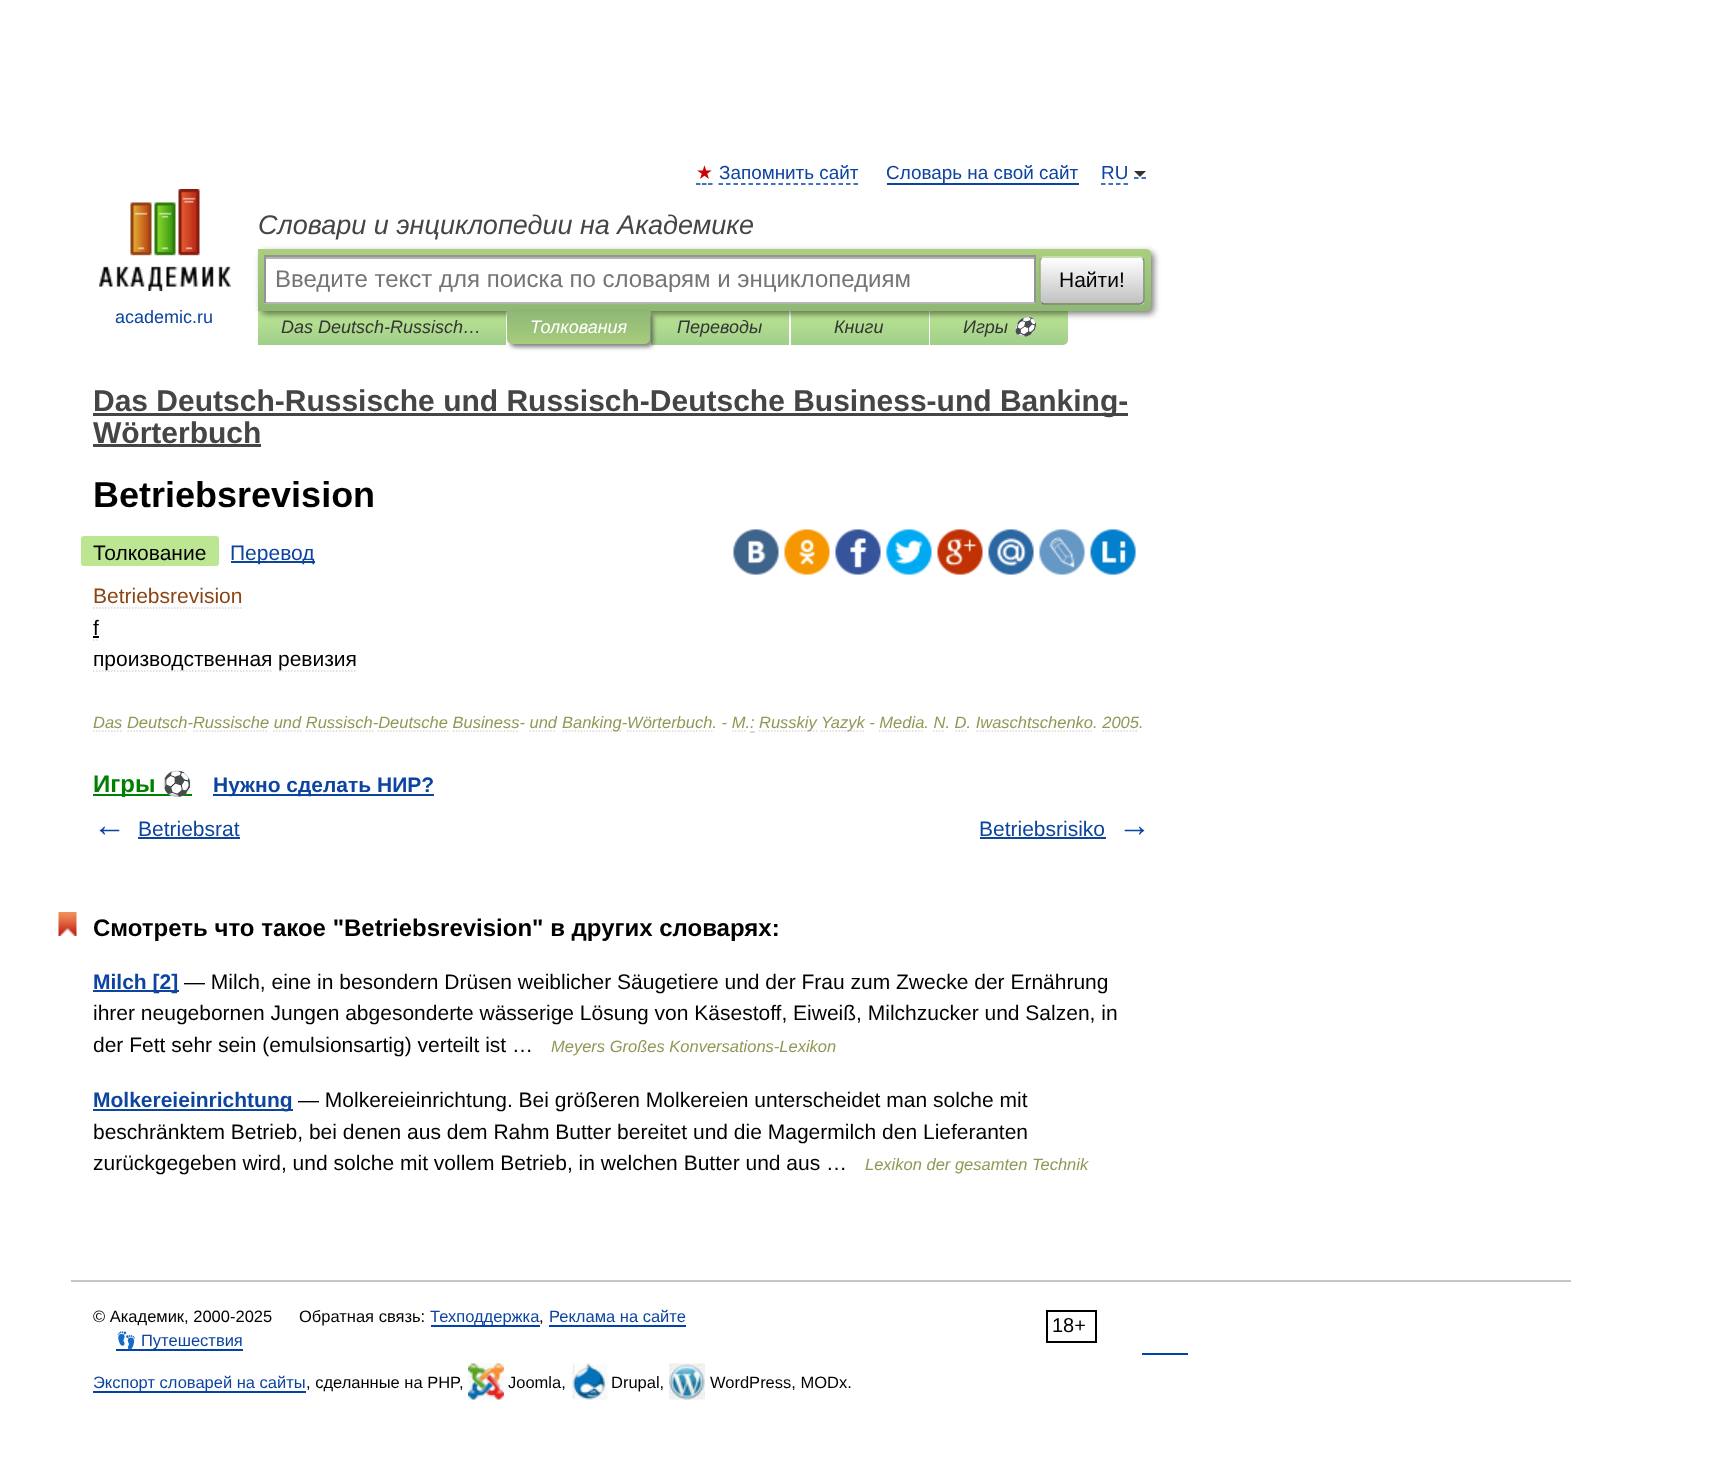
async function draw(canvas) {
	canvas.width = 1716;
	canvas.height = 1463;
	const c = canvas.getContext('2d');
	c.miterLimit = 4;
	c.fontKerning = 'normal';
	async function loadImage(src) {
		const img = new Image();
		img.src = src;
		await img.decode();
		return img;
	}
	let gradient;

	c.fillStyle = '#fff';
	c.fillRect(0, 0, 1716, 1463);
	c.font = '18.9px DejaVu Sans';
	c.fillStyle = '#c00';
	c.fillText('★', 696, 179);
	c.beginPath();
	c.moveTo(696, 184);
	c.lineTo(700.5, 184);
	c.moveTo(702, 184);
	c.lineTo(706.5, 184);
	c.moveTo(708, 184);
	c.lineTo(712.5, 184);
	c.strokeStyle = '#04a';
	c.lineWidth = 1.5;
	c.stroke();
	c.font = '18.9px Liberation Sans';
	c.fillStyle = '#0d44a0';
	c.fillText('Запомнить сайт', 719, 179);
	c.beginPath();
	c.moveTo(718.5, 184);
	c.lineTo(858, 184);
	c.setLineDash([4.5, 3]);
	c.stroke();
	c.fillText('Словарь на свой сайт', 886, 179);
	c.fillRect(887, 183, 192, 2);
	c.beginPath();
	c.moveTo(1101, 184);
	c.lineTo(1128, 184);
	c.stroke();
	c.beginPath();
	c.moveTo(1134, 178);
	c.lineTo(1138.5, 178);
	c.moveTo(1141.5, 178);
	c.lineTo(1146, 178);
	c.setLineDash([]);
	c.stroke();
	c.fillText('RU', 1101, 179);
	c.fillStyle = '#333';
	c.beginPath();
	c.moveTo(1134, 171);
	c.lineTo(1146, 171);
	c.lineTo(1140, 177);
	c.closePath();
	c.fill();
	c.font = 'italic 27px Liberation Sans';
	c.fillStyle = '#454545';
	c.fillText('Словари и энциклопедии на Академике', 258, 234);
	gradient = c.createLinearGradient(382, 311, 382, 345);
	gradient.addColorStop(0, '#bde693');
	gradient.addColorStop(1, '#a0ce8a');
	c.fillStyle = gradient;
	c.fillRect(258, 311, 248, 34);
	gradient = c.createLinearGradient(720, 311, 720, 345);
	gradient.addColorStop(0, '#bde693');
	gradient.addColorStop(1, '#a0ce8a');
	c.fillStyle = gradient;
	c.fillRect(651, 311, 138, 34);
	gradient = c.createLinearGradient(860, 311, 860, 345);
	gradient.addColorStop(0, '#bde693');
	gradient.addColorStop(1, '#a0ce8a');
	c.fillStyle = gradient;
	c.fillRect(791, 311, 138, 34);
	gradient = c.createLinearGradient(999, 311, 999, 345);
	gradient.addColorStop(0, '#bde693');
	gradient.addColorStop(1, '#a0ce8a');
	c.fillStyle = gradient;
	c.beginPath();
	c.roundRect(930, 311, 138, 34, [0, 0, 5, 0]);
	c.fill();
	c.fillStyle = '#00000080';
	c.filter = 'blur(3px)';
	c.beginPath();
	c.roundRect(261, 252, 893, 62, 5);
	c.fill();
	c.filter = 'none';
	gradient = c.createLinearGradient(704, 249, 704, 311);
	gradient.addColorStop(0, '#abcf7e');
	gradient.addColorStop(1, '#8eb874');
	c.fillStyle = gradient;
	c.beginPath();
	c.roundRect(258, 249, 893, 62, [0, 5, 5, 0]);
	c.fill();
	for (const [x, y, w, h, color] of [
		[266, 259, 768, 43, '#fff'],
		[266, 257, 768, 2, '#b3b3b3'],
		[264, 255, 771, 2, '#949494'],
		[1034, 255, 2, 48, '#949494'],
		[264, 302, 771, 2, '#b4b4b4'],
		[264, 255, 2, 48, '#949494'],
	]) {
		c.fillStyle = color;
		c.fillRect(x, y, w, h);
	}
	c.font = '24px Liberation Sans';
	c.fillStyle = '#757575';
	c.fillText('Введите текст для поиска по словарям и энциклопедиям', 275, 287);
	c.save();
	c.beginPath();
	c.roundRect(1040, 257, 105, 48, 5);
	c.clip();
	gradient = c.createLinearGradient(1092, 258, 1092, 303);
	gradient.addColorStop(0, '#fff');
	gradient.addColorStop(1, '#c1c1c1');
	c.fillStyle = gradient;
	c.fillRect(1040, 258, 105, 45);
	gradient = c.createLinearGradient(1092, 303, 1092, 348);
	gradient.addColorStop(0, '#fff');
	gradient.addColorStop(1, '#c1c1c1');
	c.fillStyle = gradient;
	c.fillRect(1040, 303, 105, 2);
	c.restore();
	c.beginPath();
	c.moveTo(1041.5, 258.5);
	c.bezierCurveTo(1042, 257.5, 1043, 257, 1044, 257);
	c.lineTo(1140, 257);
	c.bezierCurveTo(1141, 257, 1142, 257.5, 1142.5, 258.5);
	c.strokeStyle = '#d1e4bc';
	c.stroke();
	c.beginPath();
	c.moveTo(1142.5, 258.5);
	c.bezierCurveTo(1143.5, 259, 1144, 260, 1144, 261);
	c.lineTo(1144, 300);
	c.bezierCurveTo(1144, 301, 1143.5, 302, 1142.5, 302.5);
	c.strokeStyle = '#7a8e69';
	c.stroke();
	c.beginPath();
	c.moveTo(1142.5, 302.5);
	c.bezierCurveTo(1142, 303.5, 1141, 304, 1140, 304);
	c.lineTo(1044, 304);
	c.bezierCurveTo(1043, 304, 1042, 303.5, 1041.5, 302.5);
	c.strokeStyle = '#5d7250';
	c.stroke();
	c.beginPath();
	c.moveTo(1041.5, 302.5);
	c.bezierCurveTo(1040.5, 302, 1040, 301, 1040, 300);
	c.lineTo(1040, 261);
	c.bezierCurveTo(1040, 260, 1040.5, 259, 1041.5, 258.5);
	c.strokeStyle = '#9aae89';
	c.stroke();
	c.font = '21px Liberation Sans';
	c.fillStyle = '#000';
	c.fillText('Найти!', 1059, 287);
	c.drawImage(await loadImage('img1.png'), 99, 189, 132, 102);
	c.font = '18px Liberation Sans';
	c.fillStyle = '#0d44a0';
	c.fillText('academic.ru', 115, 323);
	c.font = 'italic 18px Liberation Sans';
	c.fillStyle = '#353535';
	c.fillText('Das Deutsch-Russisch…', 281, 333);
	c.fillStyle = '#00000080';
	c.filter = 'blur(2px)';
	c.beginPath();
	c.roundRect(510, 314, 143, 33, 5);
	c.fill();
	c.filter = 'none';
	gradient = c.createLinearGradient(578, 311, 578, 344);
	gradient.addColorStop(0, '#8fb875');
	gradient.addColorStop(1, '#a7cc7d');
	c.fillStyle = gradient;
	c.beginPath();
	c.roundRect(507, 311, 143, 33, [0, 0, 5, 5]);
	c.fill();
	c.fillStyle = '#fff';
	c.fillText('Толкования', 530, 333);
	c.fillStyle = '#353535';
	for (const [text, x, y] of [
		['Переводы', 677, 333],
		['Книги', 834, 333],
		['Игры', 963, 333],
	]) {
		c.fillText(text, x, y);
	}
	c.font = 'italic 18px Noto Color Emoji';
	c.fillText('⚽', 1013, 333);
	c.fillStyle = '#454545';
	c.fillRect(93, 413, 1035, 3);
	c.font = 'bold 30px Liberation Sans';
	c.fillText('Das Deutsch-Russische und Russisch-Deutsche Business-und Banking-', 93, 411);
	c.fillText('Wörterbuch', 93, 443);
	c.fillRect(93, 444, 168, 3);
	c.font = 'bold 36px Liberation Sans';
	c.fillStyle = '#000';
	c.fillText('Betriebsrevision', 93, 507);
	c.fillStyle = '#bde693';
	c.beginPath();
	c.roundRect(93, 536, 126, 30, [0, 3, 3, 0]);
	c.fill();
	c.font = '21px Liberation Sans';
	c.fillStyle = '#000';
	c.fillText('Толкование', 93, 560);
	c.fillStyle = '#bde693';
	c.beginPath();
	c.roundRect(81, 536, 12, 30, [3, 0, 0, 3]);
	c.fill();
	c.fillStyle = '#0d44a0';
	c.fillRect(231, 561, 84, 2);
	c.fillText('Перевод', 230, 560);
	c.drawImage(await loadImage('img2.png'), 733, 529, 46, 46);
	c.drawImage(await loadImage('img3.png'), 784, 529, 46, 46);
	c.drawImage(await loadImage('img4.png'), 835, 529, 46, 46);
	c.drawImage(await loadImage('img5.png'), 886, 529, 46, 46);
	c.drawImage(await loadImage('img6.png'), 937, 529, 46, 46);
	c.drawImage(await loadImage('img7.png'), 988, 529, 46, 46);
	c.drawImage(await loadImage('img8.png'), 1039, 529, 46, 46);
	c.drawImage(await loadImage('img9.png'), 1090, 529, 46, 46);
	c.fillStyle = '#8b4513';
	c.fillText('Betriebsrevision', 93, 603);
	c.beginPath();
	c.moveTo(93, 608);
	c.lineTo(243, 608);
	c.strokeStyle = '#d9d9d9';
	c.setLineDash([1.5, 1.5]);
	c.stroke();
	c.fillStyle = '#000';
	c.fillText('f', 93, 635);
	c.beginPath();
	c.moveTo(93, 640);
	c.lineTo(94.5, 640);
	c.moveTo(96, 640);
	c.lineTo(97.5, 640);
	c.setLineDash([]);
	c.stroke();
	c.fillRect(93, 636, 6, 2);
	c.beginPath();
	c.moveTo(93, 671);
	c.lineTo(273, 671);
	c.setLineDash([1.5, 1.5]);
	c.stroke();
	c.fillText('производственная', 93, 666);
	c.beginPath();
	c.moveTo(279, 671);
	c.lineTo(357, 671);
	c.stroke();
	c.fillText('ревизия', 278, 666);
	c.font = 'italic 16.5px Liberation Sans';
	c.fillStyle = '#939756';
	c.fillText('Das Deutsch-Russische und Russisch-Deutsche Business- und', 93, 728);
	c.beginPath();
	c.moveTo(93, 731);
	c.lineTo(123, 731);
	c.stroke();
	c.beginPath();
	c.moveTo(127.5, 731);
	c.lineTo(187.5, 731);
	c.stroke();
	c.beginPath();
	c.moveTo(193.5, 731);
	c.lineTo(268.5, 731);
	c.stroke();
	c.beginPath();
	c.moveTo(273, 731);
	c.lineTo(301.5, 731);
	c.stroke();
	c.beginPath();
	c.moveTo(306, 731);
	c.lineTo(373.5, 731);
	c.stroke();
	c.beginPath();
	c.moveTo(378, 731);
	c.lineTo(448.5, 731);
	c.stroke();
	c.beginPath();
	c.moveTo(453, 731);
	c.lineTo(519, 731);
	c.stroke();
	c.beginPath();
	c.moveTo(529.5, 731);
	c.lineTo(556.5, 731);
	c.stroke();
	c.beginPath();
	c.moveTo(562.5, 731);
	c.lineTo(621, 731);
	c.stroke();
	c.fillText('Banking-Wörterbuch. - М.:', 562, 728);
	c.beginPath();
	c.moveTo(627, 731);
	c.lineTo(712.5, 731);
	c.stroke();
	c.beginPath();
	c.moveTo(732, 731);
	c.lineTo(745.5, 731);
	c.stroke();
	c.fillStyle = '#d9d9d9';
	c.fillRect(750, 731, 5, 2);
	c.beginPath();
	c.moveTo(759, 731);
	c.lineTo(817.5, 731);
	c.stroke();
	c.fillStyle = '#939756';
	c.fillText('Russkiy', 759, 728);
	c.beginPath();
	c.moveTo(820.5, 731);
	c.lineTo(865.5, 731);
	c.stroke();
	c.fillText('Yazyk - Media. N. D. Iwaschtschenko. 2005.', 821, 728);
	c.beginPath();
	c.moveTo(879, 731);
	c.lineTo(924, 731);
	c.stroke();
	c.beginPath();
	c.moveTo(933, 731);
	c.lineTo(945, 731);
	c.stroke();
	c.beginPath();
	c.moveTo(955.5, 731);
	c.lineTo(957, 731);
	c.moveTo(958.5, 731);
	c.lineTo(960, 731);
	c.moveTo(961.5, 731);
	c.lineTo(963, 731);
	c.moveTo(964.5, 731);
	c.lineTo(966, 731);
	c.setLineDash([]);
	c.stroke();
	c.beginPath();
	c.moveTo(976.5, 731);
	c.lineTo(1093.5, 731);
	c.setLineDash([1.5, 1.5]);
	c.stroke();
	c.beginPath();
	c.moveTo(1102.5, 731);
	c.lineTo(1138.5, 731);
	c.stroke();
	c.fillStyle = '#008000';
	c.fillRect(93, 794, 99, 2);
	c.font = 'bold 24px Liberation Sans';
	c.fillText('Игры', 93, 792);
	c.font = 'bold 24px Noto Color Emoji';
	c.fillText('⚽', 162, 792);
	c.fillStyle = '#0d44a0';
	c.fillRect(213, 794, 221, 2);
	c.font = 'bold 21px Liberation Sans';
	c.fillText('Нужно сделать НИР?', 213, 792);
	c.font = 'bold 33px Liberation Sans';
	c.fillText('←', 93, 836);
	c.font = '21px Liberation Sans';
	c.fillText('Betriebsrat', 138, 836);
	c.fillRect(138, 837, 102, 2);
	c.fillText('Betriebsrisiko', 979, 836);
	c.fillRect(980, 837, 126, 2);
	c.font = 'bold 33px Liberation Sans';
	c.fillText('→', 1118, 836);
	c.drawImage(await loadImage('img10.png'), 58, 912, 19, 24);
	c.font = 'bold 24px Liberation Sans';
	c.fillStyle = '#000';
	c.fillText('Смотреть что такое "Betriebsrevision" в других словарях:', 93, 936);
	c.fillStyle = '#0d44a0';
	c.fillRect(93, 990, 86, 2);
	c.font = 'bold 21px Liberation Sans';
	c.fillText('Milch [2]', 93, 989);
	c.font = '21px Liberation Sans';
	c.fillStyle = '#000';
	for (const [text, x, y] of [
		['— Milch, eine in besondern Drüsen weiblicher Säugetiere und der Frau zum Zwecke der Ernährung', 184, 989],
		['ihrer neugebornen Jungen abgesonderte wässerige Lösung von Käsestoff, Eiweiß, Milchzucker und Salzen, in', 93, 1020],
		['der Fett sehr sein (emulsionsartig) verteilt ist …', 93, 1052],
	]) {
		c.fillText(text, x, y);
	}
	c.font = 'italic 16.5px Liberation Sans';
	c.fillStyle = '#939756';
	c.fillText('Meyers Großes Konversations-Lexikon', 551, 1052);
	c.fillStyle = '#0d44a0';
	c.fillRect(93, 1109, 200, 2);
	c.font = 'bold 21px Liberation Sans';
	c.fillText('Molkereieinrichtung', 93, 1107);
	c.font = '21px Liberation Sans';
	c.fillStyle = '#000';
	for (const [text, x, y] of [
		['— Molkereieinrichtung. Bei größeren Molkereien unterscheidet man solche mit', 298, 1107],
		['beschränktem Betrieb, bei denen aus dem Rahm Butter bereitet und die Magermilch den Lieferanten', 93, 1139],
		['zurückgegeben wird, und solche mit vollem Betrieb, in welchen Butter und aus …', 93, 1170],
	]) {
		c.fillText(text, x, y);
	}
	c.font = 'italic 16.5px Liberation Sans';
	c.fillStyle = '#939756';
	c.fillText('Lexikon der gesamten Technik', 865, 1170);
	c.fillStyle = '#c7c7c7';
	c.fillRect(71, 1280, 1500, 2);
	c.font = '16.5px Liberation Sans';
	c.fillStyle = '#000';
	c.fillText('© Академик, 2000-2025', 93, 1322);
	c.fillText('Обратная связь:', 299, 1322);
	c.fillStyle = '#04a';
	c.fillRect(431, 1325, 109, 2);
	c.fillStyle = '#0d44a0';
	c.fillText('Техподдержка', 430, 1322);
	c.fillStyle = '#000';
	c.fillText(',', 539, 1322);
	c.fillStyle = '#04a';
	c.fillRect(549, 1325, 137, 2);
	c.fillStyle = '#0d44a0';
	c.fillText('Реклама на сайте', 549, 1322);
	c.strokeStyle = '#000';
	c.lineWidth = 2;
	c.setLineDash([]);
	c.strokeRect(1047, 1311, 49, 31);
	c.font = '20px Liberation Sans';
	c.fillStyle = '#000';
	c.fillText('18+', 1052, 1332);
	c.fillStyle = '#04a';
	c.fillRect(116, 1349, 127, 2);
	c.font = '16.5px Noto Color Emoji';
	c.fillStyle = '#0d44a0';
	c.fillText('👣', 116, 1346);
	c.font = '16.5px Liberation Sans';
	c.fillText('Путешествия', 141, 1346);
	c.fillStyle = '#04a';
	c.fillRect(1142, 1353, 46, 2);
	c.fillRect(93, 1391, 213, 2);
	c.fillStyle = '#0d44a0';
	c.fillText('Экспорт словарей на сайты', 93, 1388);
	c.fillStyle = '#000';
	c.fillText(', сделанные на PHP,', 306, 1388);
	c.drawImage(await loadImage('img11.png'), 468, 1363, 36, 37);
	c.fillText('Joomla,', 508, 1388);
	c.drawImage(await loadImage('img12.png'), 571, 1363, 37, 37);
	c.fillText('Drupal,', 611, 1388);
	c.drawImage(await loadImage('img13.png'), 669, 1363, 36, 37);
	c.fillText('WordPress, MODx.', 710, 1388);
}

draw(document.querySelector('canvas'));
